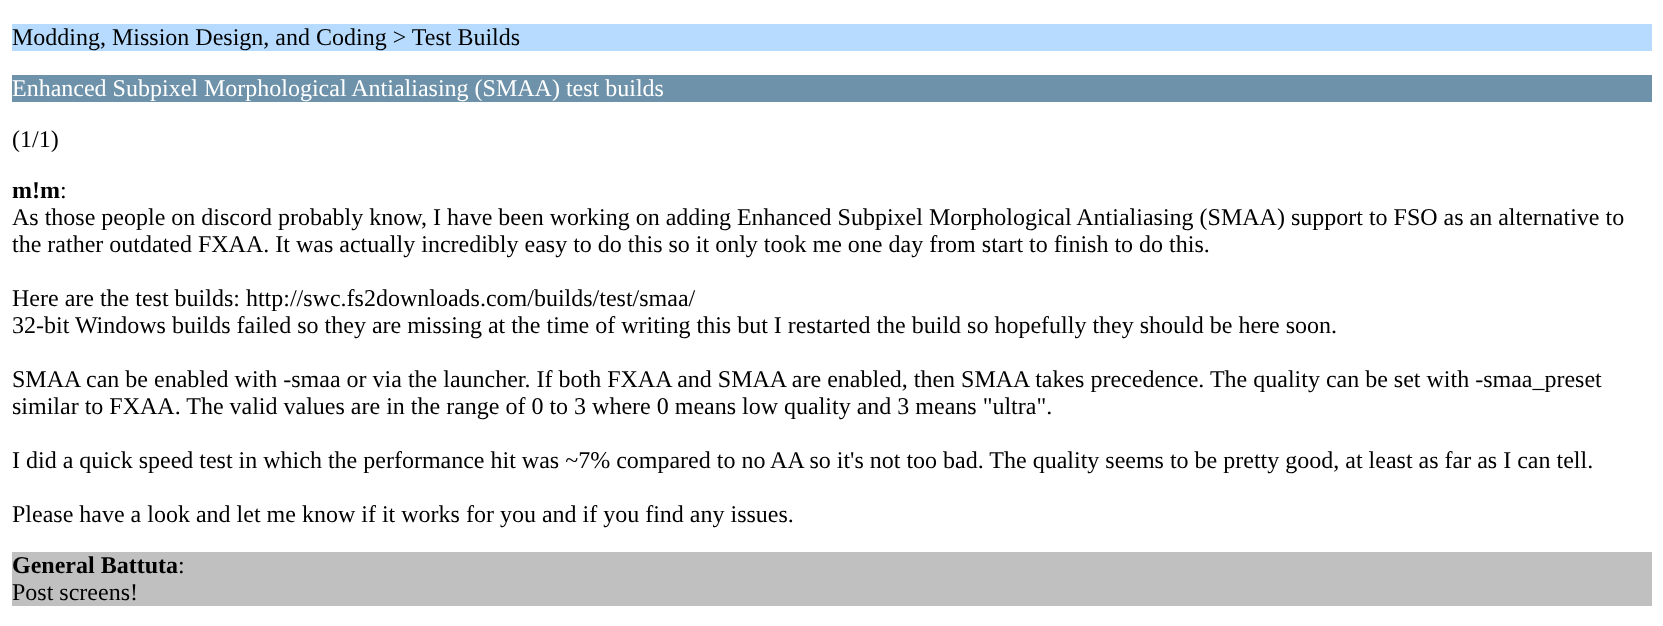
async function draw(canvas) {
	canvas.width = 1663;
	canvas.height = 626;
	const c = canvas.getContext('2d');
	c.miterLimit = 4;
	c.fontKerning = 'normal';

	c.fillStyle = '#fff';
	c.fillRect(0, 0, 1663, 626);
	c.fillStyle = '#b6dbff';
	c.fillRect(12, 24, 1640, 27);
	c.font = '24px Liberation Serif';
	c.fillStyle = '#000';
	c.fillText('Modding, Mission Design, and Coding > Test Builds', 12, 45);
	c.fillStyle = '#6d92aa';
	c.fillRect(12, 75, 1640, 27);
	c.fillStyle = '#fff';
	c.fillText('Enhanced Subpixel Morphological Antialiasing (SMAA) test builds', 12, 96);
	c.fillStyle = '#000';
	c.fillText('(1/1)', 12, 147);
	c.font = 'bold 24px Liberation Serif';
	c.fillText('m!m', 12, 198);
	c.font = '24px Liberation Serif';
	for (const [text, x, y] of [
		[':', 60, 198],
		['As those people on discord probably know, I have been working on adding Enhanced Subpixel Morphological Antialiasing (SMAA) support to FSO as an alternative to', 12, 225],
		['the rather outdated FXAA. It was actually incredibly easy to do this so it only took me one day from start to finish to do this.', 12, 252],
		['Here are the test builds: http://swc.fs2downloads.com/builds/test/smaa/', 12, 306],
		['32-bit Windows builds failed so they are missing at the time of writing this but I restarted the build so hopefully they should be here soon.', 12, 333],
		['SMAA can be enabled with -smaa or via the launcher. If both FXAA and SMAA are enabled, then SMAA takes precedence. The quality can be set with -smaa_preset', 12, 387],
		['similar to FXAA. The valid values are in the range of 0 to 3 where 0 means low quality and 3 means "ultra".', 12, 414],
		['I did a quick speed test in which the performance hit was ~7% compared to no AA so it\'s not too bad. The quality seems to be pretty good, at least as far as I can tell.', 12, 468],
		['Please have a look and let me know if it works for you and if you find any issues.', 12, 522],
	]) {
		c.fillText(text, x, y);
	}
	c.fillStyle = '#c0c0c0';
	c.fillRect(12, 552, 1640, 54);
	c.font = 'bold 24px Liberation Serif';
	c.fillStyle = '#000';
	c.fillText('General Battuta', 12, 573);
	c.font = '24px Liberation Serif';
	c.fillText(':', 178, 573);
	c.fillText('Post screens!', 12, 600);
}

draw(document.querySelector('canvas'));
